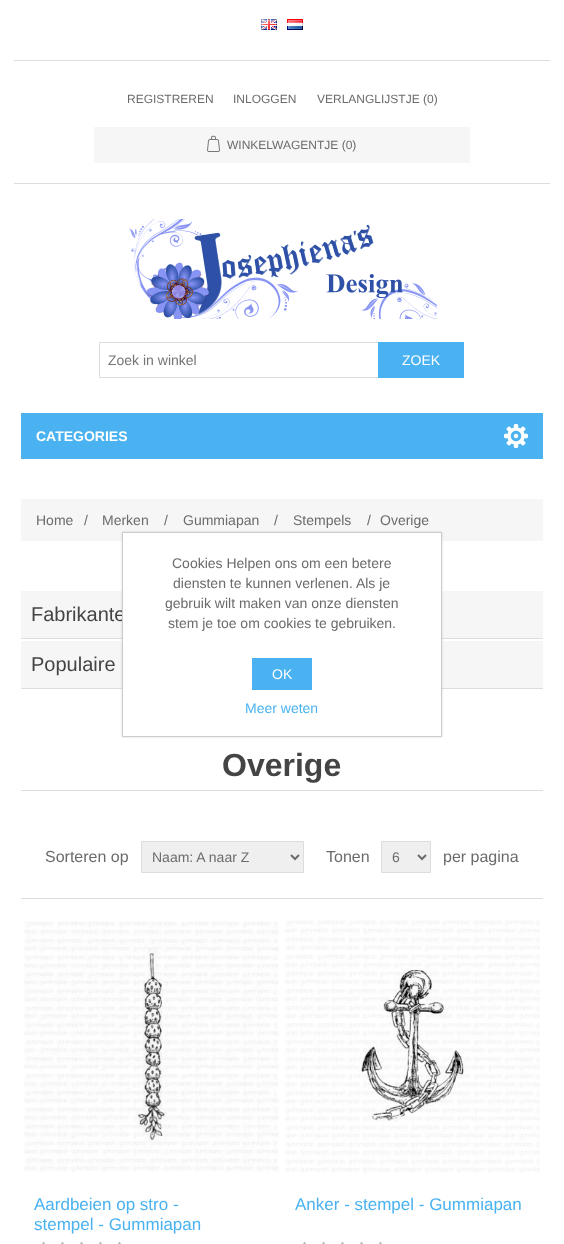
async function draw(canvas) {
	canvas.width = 564;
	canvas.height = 1244;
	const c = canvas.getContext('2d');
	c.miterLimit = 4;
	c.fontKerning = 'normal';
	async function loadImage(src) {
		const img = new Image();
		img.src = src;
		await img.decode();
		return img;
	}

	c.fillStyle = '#fff';
	c.fillRect(0, 0, 564, 1244);
	c.fillStyle = '#ddd';
	c.fillRect(14, 183, 536, 1);
	c.fillRect(14, 60, 536, 1);
	c.drawImage(await loadImage('img1.png'), 261, 19, 16, 11);
	c.drawImage(await loadImage('img2.png'), 287, 19, 16, 11);
	c.font = '12px Liberation Sans';
	c.fillStyle = '#6b6b6b';
	for (const [text, x, y] of [
		['REGISTREREN', 127, 103],
		['INLOGGEN', 233, 103],
		['VERLANGLIJSTJE (0)', 317, 103],
	]) {
		c.fillText(text, x, y);
	}
	c.fillStyle = '#f6f6f6';
	c.fillRect(94, 127, 376, 36);
	c.drawImage(await loadImage('img3.png'), 207, 135, 13, 17);
	c.fillStyle = '#6b6b6b';
	c.fillText('WINKELWAGENTJE (0)', 227, 149);
	c.drawImage(await loadImage('img4.png'), 129, 219, 308, 100);
	c.strokeStyle = '#ddd';
	c.strokeRect(99.5, 342.5, 279, 35);
	c.font = '14px Liberation Sans';
	c.fillStyle = '#757575';
	c.fillText('Zoek in winkel', 108, 365);
	c.fillStyle = '#4ab2f1';
	c.fillRect(378, 342, 86, 36);
	c.fillStyle = '#fff';
	c.fillText('ZOEK', 402, 365);
	c.fillStyle = '#4ab2f1';
	c.fillRect(21, 413, 522, 46);
	c.drawImage(await loadImage('img5.png'), 504, 424, 24, 24);
	c.font = 'bold 14px Liberation Sans';
	c.fillStyle = '#fff';
	c.fillText('CATEGORIES', 36, 441);
	c.fillStyle = '#f6f6f6';
	c.fillRect(21, 499, 522, 42);
	c.font = '14px Liberation Sans';
	c.fillStyle = '#6b6b6b';
	for (const [text, x, y] of [
		['Home', 36, 525],
		['/', 84, 525],
		['Merken', 102, 525],
		['/', 164, 525],
		['Gummiapan', 183, 525],
		['/', 274, 525],
		['Stempels', 293, 525],
		['/', 367, 525],
		['Overige', 380, 525],
	]) {
		c.fillText(text, x, y);
	}
	c.fillStyle = '#f6f6f6';
	c.fillRect(21, 591, 522, 47);
	c.fillStyle = '#ddd';
	c.fillRect(21, 638, 522, 1);
	c.font = '20px Liberation Sans';
	c.fillStyle = '#444';
	c.fillText('Fabrikante', 31, 621);
	c.fillStyle = '#f6f6f6';
	c.fillRect(21, 641, 522, 47);
	c.fillStyle = '#ddd';
	c.fillRect(21, 688, 522, 1);
	c.fillStyle = '#444';
	c.fillText('Populaire', 31, 671);
	c.fillStyle = '#ddd';
	c.fillRect(21, 790, 522, 1);
	c.font = 'bold 32px Liberation Sans';
	c.fillStyle = '#444';
	c.fillText('Overige', 222, 776);
	c.fillStyle = '#ddd';
	c.fillRect(21, 898, 522, 1);
	c.font = '16px Liberation Sans';
	c.fillStyle = '#6b6b6b';
	c.fillText('Sorteren op', 45, 862);
	c.fillStyle = '#efefef';
	c.beginPath();
	c.rect(141.5, 841.5, 162, 31);
	c.fill();
	c.stroke();
	c.beginPath();
	c.moveTo(291, 855);
	c.lineTo(295, 859);
	c.lineTo(299, 855);
	c.strokeStyle = '#6b6b6b';
	c.lineWidth = 2;
	c.stroke();
	c.font = '14px Liberation Sans';
	c.fillStyle = '#6b6b6b';
	c.fillText('Naam: A naar Z', 152, 862);
	c.font = '16px Liberation Sans';
	c.fillText('Tonen', 326, 862);
	c.fillStyle = '#efefef';
	c.beginPath();
	c.rect(381.5, 841.5, 49, 31);
	c.fill();
	c.strokeStyle = '#ddd';
	c.lineWidth = 1;
	c.stroke();
	c.beginPath();
	c.moveTo(418, 855);
	c.lineTo(422, 859);
	c.lineTo(426, 855);
	c.strokeStyle = '#6b6b6b';
	c.lineWidth = 2;
	c.stroke();
	c.font = '14px Liberation Sans';
	c.fillStyle = '#6b6b6b';
	c.fillText('6', 392, 862);
	c.font = '16px Liberation Sans';
	c.fillText('per pagina', 443, 862);
	c.drawImage(await loadImage('img6.png'), 24, 921, 255, 251);
	c.font = '17px Liberation Sans';
	c.fillStyle = '#4ab2f1';
	c.fillText('Aardbeien op stro -', 34, 1210);
	c.fillText('stempel - Gummiapan', 34, 1230);
	c.drawImage(await loadImage('img7.png'), 42, 1242, 79, 2);
	c.drawImage(await loadImage('img8.png'), 285, 920, 255, 253);
	c.fillText('Anker - stempel - Gummiapan', 295, 1210);
	c.drawImage(await loadImage('img7.png'), 303, 1242, 79, 2);
	c.fillStyle = '#00000026';
	c.filter = 'blur(1px)';
	c.beginPath();
	c.rect(122, 532, 320, 205);
	c.fill();
	c.filter = 'none';
	c.fillStyle = '#fff';
	c.beginPath();
	c.rect(122.5, 532.5, 319, 204);
	c.fill();
	c.strokeStyle = '#ccc';
	c.lineWidth = 1;
	c.stroke();
	c.font = '14px Liberation Sans';
	c.fillStyle = '#6b6b6b';
	for (const [text, x, y] of [
		['Cookies Helpen ons om een betere', 172, 568],
		['diensten te kunnen verlenen. Als je', 173, 588],
		['gebruik wilt maken van onze diensten', 165, 608],
		['stem je toe om cookies te gebruiken.', 168, 628],
	]) {
		c.fillText(text, x, y);
	}
	c.fillStyle = '#4ab2f1';
	c.fillRect(252, 658, 60, 32);
	c.fillStyle = '#fff';
	c.fillText('OK', 272, 679);
	c.fillStyle = '#4ab2f1';
	c.fillText('Meer weten', 245, 713);
}

draw(document.querySelector('canvas'));
